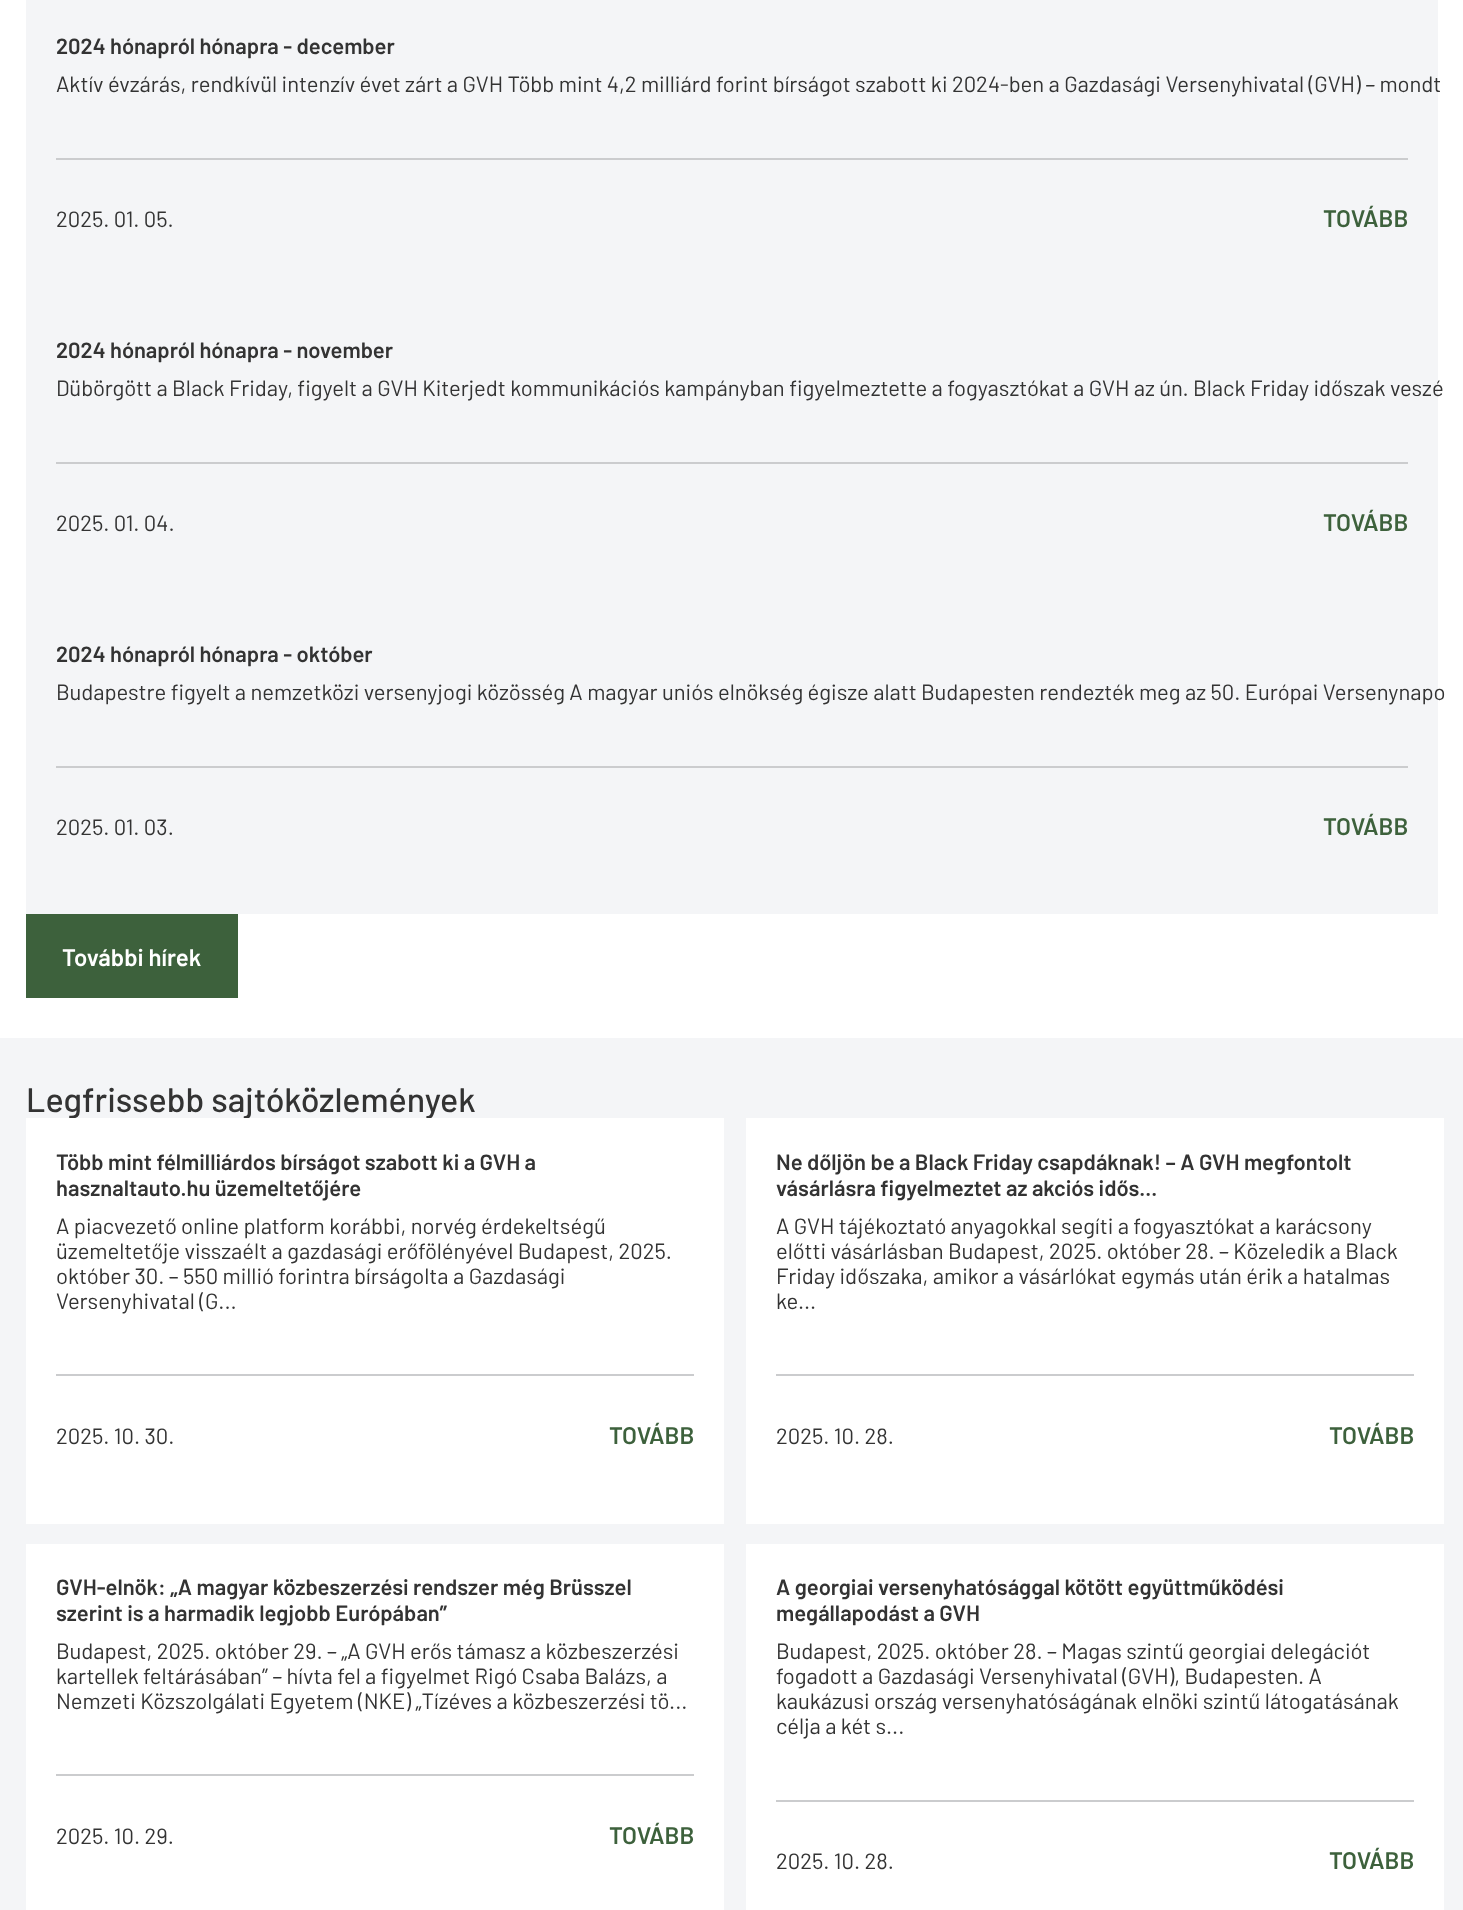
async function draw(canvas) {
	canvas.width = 1463;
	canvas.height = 1910;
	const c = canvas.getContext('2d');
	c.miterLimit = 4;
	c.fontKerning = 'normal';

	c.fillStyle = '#fff';
	c.fillRect(0, 0, 1463, 1910);
	c.fillStyle = '#f4f5f7';
	c.fillRect(26, 0, 1412, 914);
	c.font = '600 22px Barlow';
	c.fillStyle = '#333';
	c.fillText('2024 hónapról hónapra - december', 56, 54);
	c.font = '22px Barlow';
	c.fillText('Aktív évzárás, rendkívül intenzív évet zárt a GVH Több mint 4,2 milliárd forint bírságot szabott ki 2024-ben a Gazdasági Versenyhivatal (GVH) – mondt', 56, 92);
	c.fillStyle = '#cbccce';
	c.fillRect(56, 158, 1352, 2);
	c.fillStyle = '#333';
	c.fillText('2025. 01. 05.', 56, 227);
	c.font = '600 24px Barlow';
	c.fillStyle = '#3d613c';
	c.fillText('TOVÁBB', 1323, 227);
	c.font = '600 22px Barlow';
	c.fillStyle = '#333';
	c.fillText('2024 hónapról hónapra - november', 56, 358);
	c.font = '22px Barlow';
	c.fillText('Dübörgött a Black Friday, figyelt a GVH Kiterjedt kommunikációs kampányban figyelmeztette a fogyasztókat a GVH az ún. Black Friday időszak veszé', 56, 396);
	c.fillStyle = '#cbccce';
	c.fillRect(56, 462, 1352, 2);
	c.fillStyle = '#333';
	c.fillText('2025. 01. 04.', 56, 531);
	c.font = '600 24px Barlow';
	c.fillStyle = '#3d613c';
	c.fillText('TOVÁBB', 1323, 531);
	c.font = '600 22px Barlow';
	c.fillStyle = '#333';
	c.fillText('2024 hónapról hónapra - október', 56, 662);
	c.font = '22px Barlow';
	c.fillText('Budapestre figyelt a nemzetközi versenyjogi közösség A magyar uniós elnökség égisze alatt Budapesten rendezték meg az 50. Európai Versenynapo', 56, 700);
	c.fillStyle = '#cbccce';
	c.fillRect(56, 766, 1352, 2);
	c.fillStyle = '#333';
	c.fillText('2025. 01. 03.', 56, 835);
	c.font = '600 24px Barlow';
	c.fillStyle = '#3d613c';
	c.fillText('TOVÁBB', 1323, 835);
	c.fillRect(26, 914, 212, 84);
	c.fillStyle = '#fff';
	c.fillText('További hírek', 62, 966);
	c.fillStyle = '#f4f5f7';
	c.fillRect(0, 1038, 1463, 872);
	c.font = '500 34px Barlow';
	c.fillStyle = '#333';
	c.fillText('Legfrissebb sajtóközlemények', 26, 1112);
	c.fillStyle = '#fff';
	c.fillRect(26, 1118, 698, 406);
	c.font = '600 22px Barlow';
	c.fillStyle = '#333';
	c.fillText('Több mint félmilliárdos bírságot szabott ki a GVH a', 56, 1170);
	c.fillText('hasznaltauto.hu üzemeltetőjére', 56, 1196);
	c.font = '22px Barlow';
	for (const [text, x, y] of [
		['A piacvezető online platform korábbi, norvég érdekeltségű', 56, 1234],
		['üzemeltetője visszaélt a gazdasági erőfölényével Budapest, 2025.', 56, 1259],
		['október 30. – 550 millió forintra bírságolta a Gazdasági', 56, 1284],
		['Versenyhivatal (G...', 56, 1309],
	]) {
		c.fillText(text, x, y);
	}
	c.fillStyle = '#cbccce';
	c.fillRect(56, 1374, 638, 2);
	c.fillStyle = '#333';
	c.fillText('2025. 10. 30.', 56, 1444);
	c.font = '600 24px Barlow';
	c.fillStyle = '#3d613c';
	c.fillText('TOVÁBB', 609, 1444);
	c.fillStyle = '#fff';
	c.fillRect(26, 1544, 698, 366);
	c.font = '600 22px Barlow';
	c.fillStyle = '#333';
	c.fillText('GVH-elnök: „A magyar közbeszerzési rendszer még Brüsszel', 56, 1595);
	c.fillText('szerint is a harmadik legjobb Európában”', 56, 1621);
	c.font = '22px Barlow';
	for (const [text, x, y] of [
		['Budapest, 2025. október 29. – „A GVH erős támasz a közbeszerzési', 56, 1659],
		['kartellek feltárásában” – hívta fel a figyelmet Rigó Csaba Balázs, a', 56, 1684],
		['Nemzeti Közszolgálati Egyetem (NKE) „Tízéves a közbeszerzési tö...', 56, 1709],
	]) {
		c.fillText(text, x, y);
	}
	c.fillStyle = '#cbccce';
	c.fillRect(56, 1774, 638, 2);
	c.fillStyle = '#333';
	c.fillText('2025. 10. 29.', 56, 1844);
	c.font = '600 24px Barlow';
	c.fillStyle = '#3d613c';
	c.fillText('TOVÁBB', 609, 1844);
	c.fillStyle = '#fff';
	c.fillRect(746, 1118, 698, 406);
	c.font = '600 22px Barlow';
	c.fillStyle = '#333';
	c.fillText('Ne dőljön be a Black Friday csapdáknak! – A GVH megfontolt', 776, 1170);
	c.fillText('vásárlásra figyelmeztet az akciós idős...', 776, 1196);
	c.font = '22px Barlow';
	for (const [text, x, y] of [
		['A GVH tájékoztató anyagokkal segíti a fogyasztókat a karácsony', 776, 1234],
		['előtti vásárlásban Budapest, 2025. október 28. – Közeledik a Black', 776, 1259],
		['Friday időszaka, amikor a vásárlókat egymás után érik a hatalmas', 776, 1284],
		['ke...', 776, 1309],
	]) {
		c.fillText(text, x, y);
	}
	c.fillStyle = '#cbccce';
	c.fillRect(776, 1374, 638, 2);
	c.fillStyle = '#333';
	c.fillText('2025. 10. 28.', 776, 1444);
	c.font = '600 24px Barlow';
	c.fillStyle = '#3d613c';
	c.fillText('TOVÁBB', 1329, 1444);
	c.fillStyle = '#fff';
	c.fillRect(746, 1544, 698, 366);
	c.font = '600 22px Barlow';
	c.fillStyle = '#333';
	c.fillText('A georgiai versenyhatósággal kötött együttműködési', 776, 1595);
	c.fillText('megállapodást a GVH', 776, 1621);
	c.font = '22px Barlow';
	for (const [text, x, y] of [
		['Budapest, 2025. október 28. – Magas szintű georgiai delegációt', 776, 1659],
		['fogadott a Gazdasági Versenyhivatal (GVH), Budapesten. A', 776, 1684],
		['kaukázusi ország versenyhatóságának elnöki szintű látogatásának', 776, 1709],
		['célja a két s...', 776, 1734],
	]) {
		c.fillText(text, x, y);
	}
	c.fillStyle = '#cbccce';
	c.fillRect(776, 1800, 638, 2);
	c.fillStyle = '#333';
	c.fillText('2025. 10. 28.', 776, 1869);
	c.font = '600 24px Barlow';
	c.fillStyle = '#3d613c';
	c.fillText('TOVÁBB', 1329, 1869);
}

draw(document.querySelector('canvas'));
